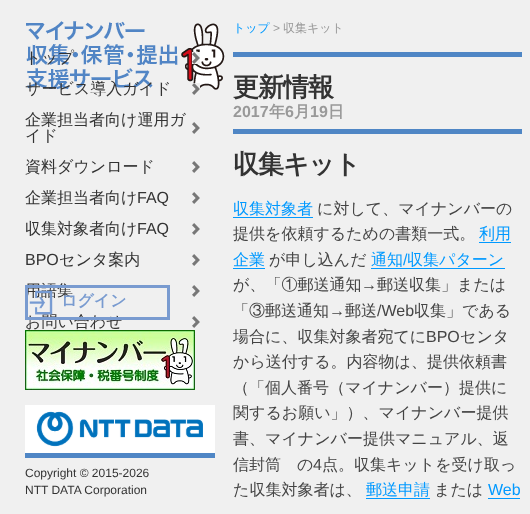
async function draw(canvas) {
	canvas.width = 530;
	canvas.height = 514;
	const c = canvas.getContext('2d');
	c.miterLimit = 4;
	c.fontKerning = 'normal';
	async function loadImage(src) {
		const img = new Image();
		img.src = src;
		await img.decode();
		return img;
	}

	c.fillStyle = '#f0f0f0';
	c.fillRect(0, 0, 530, 514);
	c.drawImage(await loadImage('img1.png'), 26, 21, 199, 69);
	c.drawImage(await loadImage('img2.png'), 192, 52, 8, 12);
	c.font = '500 16px WenQuanYi Zen Hei';
	c.fillStyle = '#333';
	c.fillText('トップ', 25, 63);
	c.drawImage(await loadImage('img2.png'), 192, 83, 8, 12);
	c.fillText('サービス導入ガイド', 25, 94);
	c.drawImage(await loadImage('img2.png'), 192, 122, 8, 12);
	c.fillText('企業担当者向け運用ガ', 25, 125);
	c.fillText('イド', 25, 141);
	c.drawImage(await loadImage('img2.png'), 192, 161, 8, 12);
	c.fillText('資料ダウンロード', 25, 172);
	c.drawImage(await loadImage('img2.png'), 192, 192, 8, 12);
	c.fillText('企業担当者向け', 25, 203);
	c.font = '16px Liberation Sans';
	c.fillText('FAQ', 137, 203);
	c.drawImage(await loadImage('img2.png'), 192, 223, 8, 12);
	c.font = '500 16px WenQuanYi Zen Hei';
	c.fillText('収集対象者向け', 25, 234);
	c.font = '16px Liberation Sans';
	c.fillText('FAQ', 137, 234);
	c.drawImage(await loadImage('img2.png'), 192, 254, 8, 12);
	c.fillText('BPO', 25, 265);
	c.font = '500 16px WenQuanYi Zen Hei';
	c.fillText('センタ案内', 59, 265);
	c.drawImage(await loadImage('img2.png'), 192, 285, 8, 12);
	c.fillText('用語集', 25, 296);
	c.drawImage(await loadImage('img2.png'), 192, 316, 8, 12);
	c.fillText('お問い合わせ', 25, 327);
	c.font = '500 12px WenQuanYi Zen Hei';
	c.fillStyle = '#09f';
	c.fillText('トップ', 233, 32);
	c.font = '12px Liberation Sans';
	c.fillStyle = '#999';
	c.fillText('>', 273, 32);
	c.font = '500 12px WenQuanYi Zen Hei';
	c.fillText('収集キット', 283, 32);
	c.fillStyle = '#4f86c5';
	c.fillRect(233, 52, 289, 5);
	c.letterSpacing = '-1px';
	c.font = 'bold 26px WenQuanYi Zen Hei';
	c.fillStyle = '#333';
	c.fillText('更新情報', 233, 96);
	c.letterSpacing = '0px';
	c.font = 'bold 16px Liberation Sans';
	c.fillStyle = '#999';
	c.fillText('2017', 233, 117);
	c.font = 'bold 16px WenQuanYi Zen Hei';
	c.fillText('年', 269, 117);
	c.font = 'bold 16px Liberation Sans';
	c.fillText('6', 285, 117);
	c.font = 'bold 16px WenQuanYi Zen Hei';
	c.fillText('月', 294, 117);
	c.font = 'bold 16px Liberation Sans';
	c.fillText('19', 310, 117);
	c.font = 'bold 16px WenQuanYi Zen Hei';
	c.fillText('日', 328, 117);
	c.fillStyle = '#4f86c5';
	c.fillRect(233, 129, 289, 5);
	c.letterSpacing = '-1px';
	c.font = 'bold 26px WenQuanYi Zen Hei';
	c.fillStyle = '#333';
	c.fillText('収集キット', 233, 173);
	c.letterSpacing = '0px';
	c.font = '500 16px WenQuanYi Zen Hei';
	c.fillStyle = '#09f';
	c.fillText('収集対象者', 233, 214);
	c.fillRect(233, 217, 80, 1);
	c.fillStyle = '#444';
	c.fillText('に対して、マイナンバーの', 317, 214);
	c.fillText('提供を依頼するための書類一式。', 233, 239);
	c.fillStyle = '#09f';
	c.fillText('利用', 479, 239);
	c.fillRect(479, 242, 32, 1);
	c.fillText('企業', 233, 265);
	c.fillRect(233, 268, 32, 1);
	c.fillStyle = '#444';
	c.fillText('が申し込んだ', 269, 265);
	c.fillStyle = '#09f';
	c.fillText('通知', 371, 265);
	c.font = '16px Liberation Sans';
	c.fillText('/', 403, 265);
	c.fillRect(371, 268, 134, 1);
	c.font = '500 16px WenQuanYi Zen Hei';
	c.fillText('収集パターン', 407, 265);
	c.fillStyle = '#444';
	c.fillText('が、「①郵送通知', 233, 290);
	c.font = '16px Liberation Sans';
	c.fillText('→', 361, 290);
	c.font = '500 16px WenQuanYi Zen Hei';
	c.fillText('郵送収集」または', 377, 290);
	c.fillText('「③郵送通知', 233, 316);
	c.font = '16px Liberation Sans';
	c.fillText('→', 329, 316);
	c.font = '500 16px WenQuanYi Zen Hei';
	c.fillText('郵送', 345, 316);
	c.font = '16px Liberation Sans';
	c.fillText('/Web', 377, 316);
	c.font = '500 16px WenQuanYi Zen Hei';
	c.fillText('収集」である', 414, 316);
	c.fillText('場合に、収集対象者宛てに', 233, 342);
	c.font = '16px Liberation Sans';
	c.fillText('BPO', 426, 342);
	c.font = '500 16px WenQuanYi Zen Hei';
	for (const [text, x, y] of [
		['センタ', 460, 342],
		['から送付する。内容物は、提供依頼書', 233, 367],
		['（「個人番号（マイナンバー）提供に', 233, 393],
		['関するお願い」）、マイナンバー提供', 233, 418],
		['書、マイナンバー提供マニュアル、返', 233, 444],
		['信封筒　の', 233, 470],
	]) {
		c.fillText(text, x, y);
	}
	c.font = '16px Liberation Sans';
	c.fillText('4', 313, 470);
	c.font = '500 16px WenQuanYi Zen Hei';
	c.fillText('点。収集キットを受け取っ', 322, 470);
	c.fillText('た収集対象者は、', 233, 495);
	c.fillStyle = '#09f';
	c.fillText('郵送申請', 366, 495);
	c.fillRect(366, 498, 64, 1);
	c.fillStyle = '#444';
	c.fillText('または', 434, 495);
	c.font = '16px Liberation Sans';
	c.fillStyle = '#09f';
	c.fillText('Web', 488, 495);
	c.fillRect(488, 498, 32, 1);
	c.drawImage(await loadImage('img3.png'), 29, 290, 24, 25);
	c.strokeStyle = '#799bd0';
	c.lineWidth = 3;
	c.strokeRect(26.5, 286.5, 142, 32);
	c.font = 'bold 16px WenQuanYi Zen Hei';
	c.fillStyle = '#799bd0';
	c.fillText('ログイン', 61, 306);
	c.drawImage(await loadImage('img4.png'), 25, 330, 170, 60);
	c.drawImage(await loadImage('img5.png'), 25, 405, 190, 48);
	c.fillStyle = '#4f86c5';
	c.fillRect(25, 453, 190, 5);
	c.font = '12px Liberation Sans';
	c.fillStyle = '#333';
	c.fillText('Copyright © 2015-2026', 25, 477);
	c.fillText('NTT DATA Corporation', 25, 494);
}

draw(document.querySelector('canvas'));
